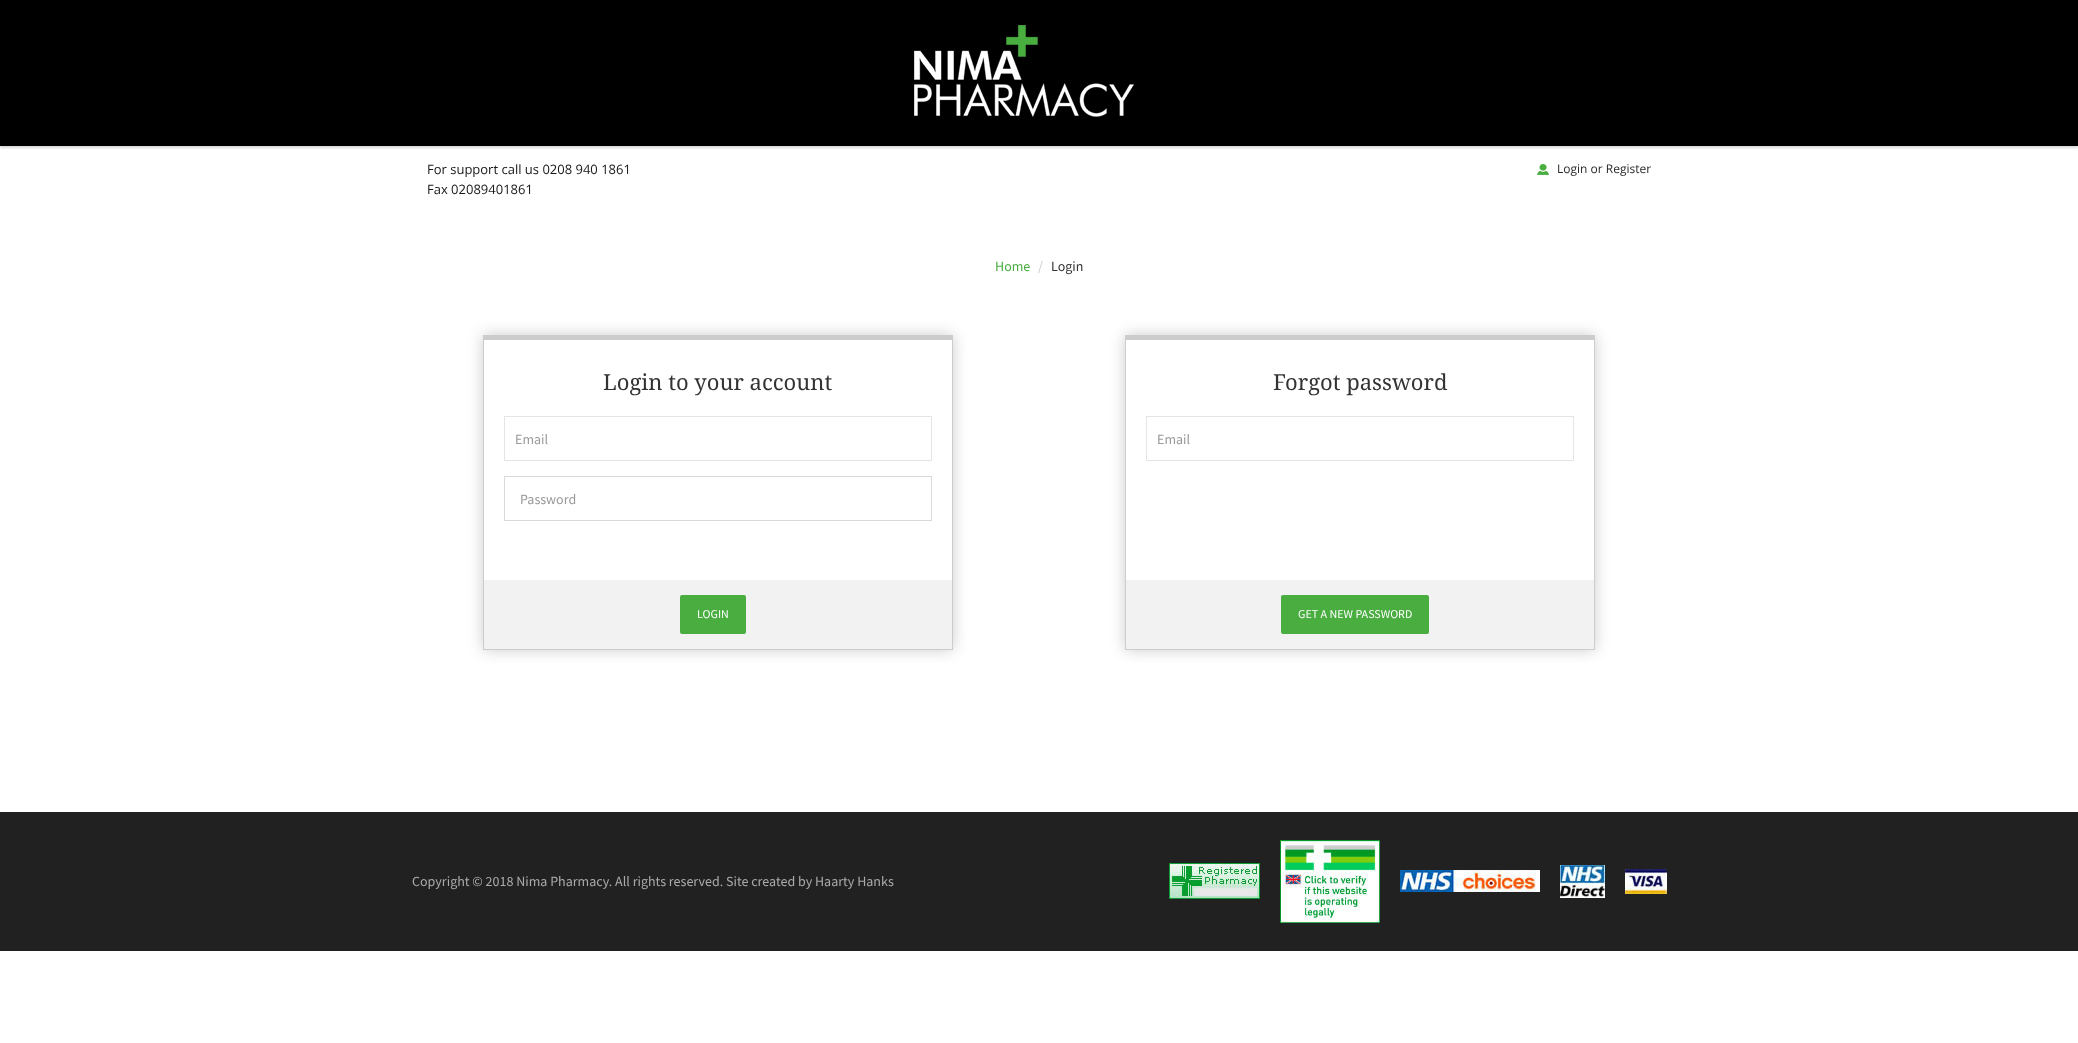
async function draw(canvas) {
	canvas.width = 2078;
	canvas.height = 1043;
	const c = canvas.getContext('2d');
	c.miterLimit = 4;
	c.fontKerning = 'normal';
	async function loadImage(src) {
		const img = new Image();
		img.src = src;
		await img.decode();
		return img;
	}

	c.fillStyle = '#fff';
	c.fillRect(0, 0, 2078, 1043);
	c.fillStyle = '#000';
	c.fillRect(0, 0, 2078, 146);
	c.save();
	c.beginPath();
	c.rect(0, 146, 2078, 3);
	c.clip();
	c.fillStyle = '#00000026';
	c.filter = 'blur(1px)';
	c.beginPath();
	c.rect(0, 2, 2078, 146);
	c.fill();
	c.filter = 'none';
	c.restore();
	c.drawImage(await loadImage('img1.png'), 914, 25, 220, 92);
	c.font = '13px Open Sans';
	c.fillStyle = '#181818';
	c.fillText('For support call us 0208 940 1861', 427, 174);
	c.fillText('Fax 02089401861', 427, 194);
	c.drawImage(await loadImage('img2.png'), 1537, 164, 12, 11);
	c.font = '12px Open Sans';
	c.fillStyle = '#292929';
	c.fillText('Login or Register', 1557, 173);
	c.font = '14px Source Sans Pro';
	c.fillStyle = '#49ad40';
	c.fillText('Home', 995, 271);
	c.fillStyle = '#ccc';
	c.fillText('/', 1038, 271);
	c.fillStyle = '#333';
	c.fillText('Login', 1051, 271);
	c.save();
	c.beginPath();
	c.moveTo(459, 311);
	c.lineTo(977, 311);
	c.lineTo(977, 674);
	c.lineTo(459, 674);
	c.closePath();
	c.moveTo(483, 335);
	c.lineTo(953, 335);
	c.lineTo(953, 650);
	c.lineTo(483, 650);
	c.closePath();
	c.clip('evenodd');
	c.fillStyle = '#00000033';
	c.filter = 'blur(7.5px)';
	c.beginPath();
	c.rect(483, 335, 470, 315);
	c.fill();
	c.filter = 'none';
	c.restore();
	for (const [x, y, w, h, color] of [
		[483, 335, 470, 5, '#ccc'],
		[952, 335, 1, 315, '#ccc'],
		[483, 649, 470, 1, '#ccc'],
		[483, 335, 1, 315, '#ccc'],
	]) {
		c.fillStyle = color;
		c.fillRect(x, y, w, h);
	}
	c.font = '22px Droid Serif';
	c.fillStyle = '#333';
	c.fillText('Login to your account', 603, 390);
	c.strokeStyle = '#e5e5e5';
	c.strokeRect(504.5, 416.5, 427, 44);
	c.font = '14px Source Sans Pro';
	c.fillStyle = '#999';
	c.fillText('Email', 515, 444);
	c.strokeStyle = '#d9d9d9';
	c.strokeRect(504.5, 476.5, 427, 44);
	c.fillText('Password', 520, 504);
	c.fillStyle = '#f2f2f2';
	c.fillRect(484, 580, 468, 69);
	c.fillStyle = '#49ad40';
	c.beginPath();
	c.roundRect(681, 596, 64, 37, 1);
	c.fill();
	c.strokeStyle = '#49ad40';
	c.lineWidth = 2;
	c.stroke();
	c.font = '12px Source Sans Pro';
	c.fillStyle = '#fff';
	c.fillText('LOGIN', 697, 618);
	c.save();
	c.beginPath();
	c.moveTo(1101, 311);
	c.lineTo(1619, 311);
	c.lineTo(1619, 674);
	c.lineTo(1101, 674);
	c.closePath();
	c.moveTo(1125, 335);
	c.lineTo(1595, 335);
	c.lineTo(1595, 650);
	c.lineTo(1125, 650);
	c.closePath();
	c.clip('evenodd');
	c.fillStyle = '#00000033';
	c.filter = 'blur(7.5px)';
	c.beginPath();
	c.rect(1125, 335, 470, 315);
	c.fill();
	c.filter = 'none';
	c.restore();
	for (const [x, y, w, h, color] of [
		[1125, 335, 470, 5, '#ccc'],
		[1594, 335, 1, 315, '#ccc'],
		[1125, 649, 470, 1, '#ccc'],
		[1125, 335, 1, 315, '#ccc'],
	]) {
		c.fillStyle = color;
		c.fillRect(x, y, w, h);
	}
	c.font = '22px Droid Serif';
	c.fillStyle = '#333';
	c.fillText('Forgot password', 1273, 390);
	c.strokeStyle = '#e5e5e5';
	c.lineWidth = 1;
	c.strokeRect(1146.5, 416.5, 427, 44);
	c.font = '14px Source Sans Pro';
	c.fillStyle = '#999';
	c.fillText('Email', 1157, 444);
	c.fillStyle = '#f2f2f2';
	c.fillRect(1126, 580, 468, 69);
	c.fillStyle = '#49ad40';
	c.beginPath();
	c.roundRect(1282, 596, 146, 37, 1);
	c.fill();
	c.strokeStyle = '#49ad40';
	c.lineWidth = 2;
	c.stroke();
	c.font = '12px Source Sans Pro';
	c.fillStyle = '#fff';
	c.fillText('GET A NEW PASSWORD', 1298, 618);
	c.fillStyle = '#212121';
	c.fillRect(0, 812, 2078, 139);
	c.font = '14px Source Sans Pro';
	c.fillStyle = '#ababab';
	c.fillText('Copyright © 2018 Nima Pharmacy. All rights reserved.', 412, 886);
	c.fillText('Site created by Haarty Hanks', 726, 886);
	c.drawImage(await loadImage('img3.png'), 1169, 863, 91, 36);
	c.drawImage(await loadImage('img4.png'), 1280, 840, 100, 83);
	c.drawImage(await loadImage('img5.png'), 1400, 870, 140, 22);
	c.drawImage(await loadImage('img6.png'), 1560, 865, 45, 33);
	c.drawImage(await loadImage('img7.png'), 1625, 869, 42, 25);
}

draw(document.querySelector('canvas'));
